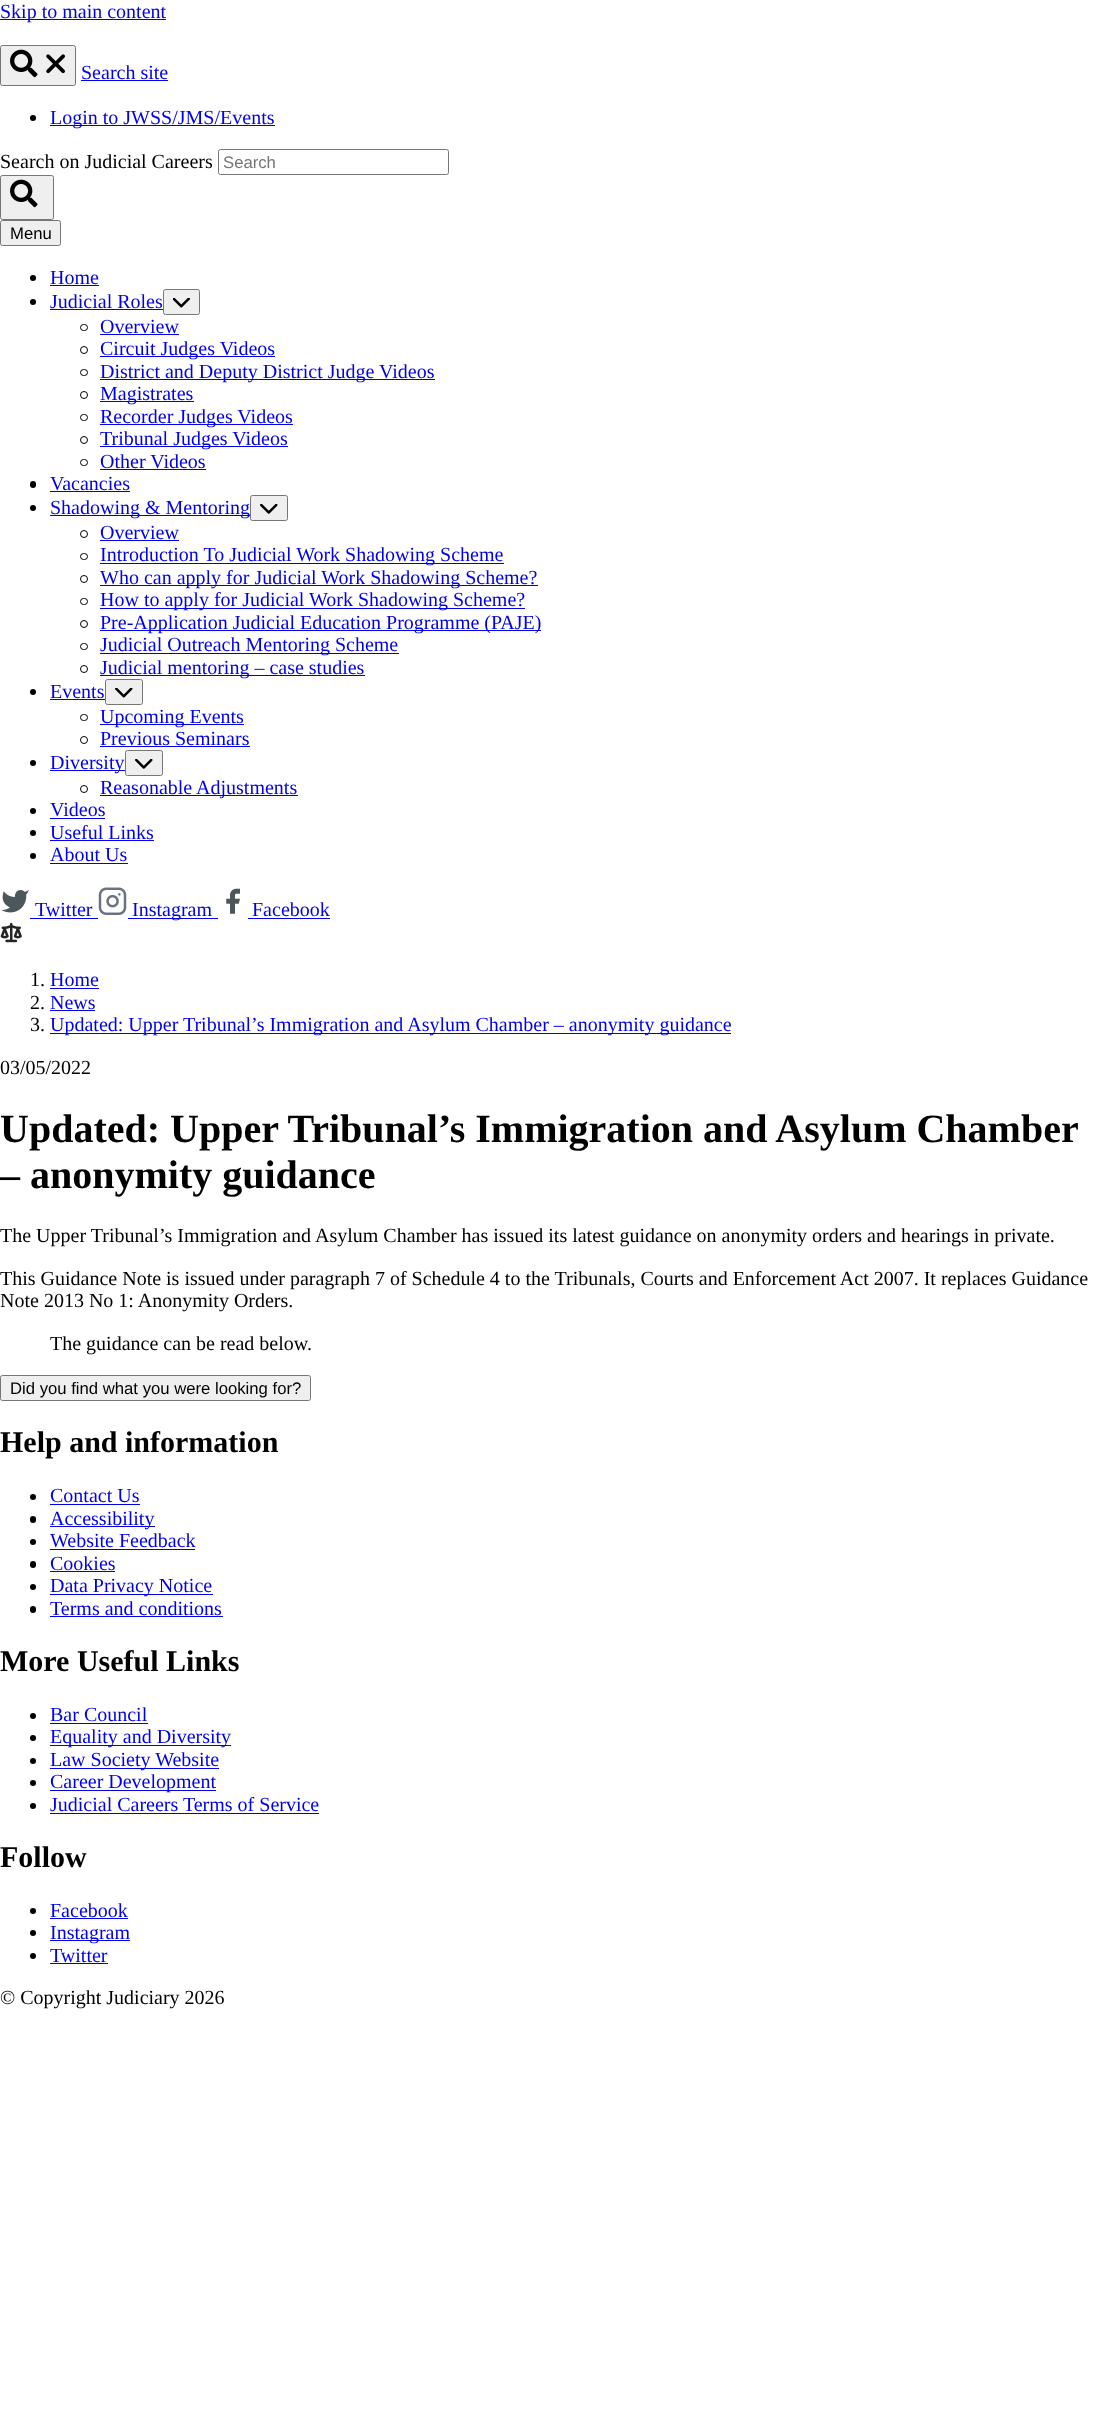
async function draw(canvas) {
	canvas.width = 1097;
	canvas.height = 2427;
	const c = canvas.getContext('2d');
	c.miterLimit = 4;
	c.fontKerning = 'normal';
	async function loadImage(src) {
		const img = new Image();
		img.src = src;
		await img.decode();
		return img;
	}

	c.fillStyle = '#fff';
	c.fillRect(0, 0, 1097, 2427);
	c.fillStyle = '#00e';
	c.fillRect(0, 19, 166, 1);
	c.font = '20px Liberation Serif';
	c.fillText('Skip to main content', 0, 18);
	c.fillStyle = '#efefef';
	c.beginPath();
	c.roundRect(0.5, 45.5, 75, 40, 2);
	c.fill();
	c.strokeStyle = '#767676';
	c.stroke();
	c.drawImage(await loadImage('img1.png'), 10, 49, 28, 29);
	c.drawImage(await loadImage('img2.png'), 46, 54, 19, 20);
	c.fillStyle = '#00e';
	c.fillText('Search site', 81, 79);
	c.fillRect(81, 80, 87, 1);
	c.fillStyle = '#000';
	c.beginPath();
	c.arc(33, 118, 3, 0, 2 * Math.PI);
	c.fill();
	c.fillStyle = '#00e';
	c.fillRect(50, 125, 225, 1);
	c.fillText('Login to JWSS/JMS/Events', 50, 124);
	c.fillStyle = '#000';
	c.fillText('Search on Judicial Careers', 0, 168);
	c.beginPath();
	c.roundRect(218.5, 149.5, 230, 25, 2);
	c.stroke();
	c.font = '16.7px Liberation Sans';
	c.fillStyle = '#757575';
	c.fillText('Search', 223, 168);
	c.fillStyle = '#efefef';
	c.beginPath();
	c.roundRect(0.5, 175.5, 53, 44, 2);
	c.fill();
	c.stroke();
	c.drawImage(await loadImage('img1.png'), 10, 179, 28, 29);
	c.beginPath();
	c.roundRect(0.5, 220.5, 60, 25, 2);
	c.fill();
	c.stroke();
	c.fillStyle = '#000';
	c.fillText('Menu', 10, 239);
	c.beginPath();
	c.arc(33, 278, 3, 0, 2 * Math.PI);
	c.fill();
	c.font = '20px Liberation Serif';
	c.fillStyle = '#00e';
	c.fillText('Home', 50, 284);
	c.fillRect(50, 285, 49, 1);
	c.fillStyle = '#000';
	c.beginPath();
	c.arc(33, 302, 3, 0, 2 * Math.PI);
	c.fill();
	c.fillStyle = '#00e';
	c.fillText('Judicial Roles', 50, 308);
	c.fillRect(50, 309, 113, 1);
	c.fillStyle = '#efefef';
	c.beginPath();
	c.roundRect(163.5, 289.5, 36, 25, 2);
	c.fill();
	c.stroke();
	c.drawImage(await loadImage('img3.png'), 173, 298, 17, 10);
	c.beginPath();
	c.roundRect(80.5, 324.5, 7, 6, 3);
	c.strokeStyle = '#000';
	c.stroke();
	c.fillStyle = '#00e';
	c.fillText('Overview', 100, 333);
	c.fillRect(100, 334, 79, 1);
	c.beginPath();
	c.arc(84, 350, 3.5, 0, 2 * Math.PI);
	c.stroke();
	c.fillRect(100, 356, 175, 1);
	c.fillText('Circuit Judges Videos', 100, 355);
	c.beginPath();
	c.roundRect(80.5, 369.5, 7, 6, 3);
	c.stroke();
	c.fillRect(100, 379, 335, 1);
	c.fillText('District and Deputy District Judge Videos', 100, 378);
	c.beginPath();
	c.arc(84, 395, 3.5, 0, 2 * Math.PI);
	c.stroke();
	c.fillRect(100, 401, 94, 1);
	c.fillText('Magistrates', 100, 400);
	c.beginPath();
	c.roundRect(80.5, 414.5, 7, 6, 3);
	c.stroke();
	c.fillRect(100, 424, 193, 1);
	c.fillText('Recorder Judges Videos', 100, 423);
	c.beginPath();
	c.arc(84, 440, 3.5, 0, 2 * Math.PI);
	c.stroke();
	c.fillRect(100, 446, 188, 1);
	c.fillText('Tribunal Judges Videos', 100, 445);
	c.beginPath();
	c.roundRect(80.5, 459.5, 7, 6, 3);
	c.stroke();
	c.fillText('Other Videos', 100, 468);
	c.fillRect(100, 469, 106, 1);
	c.fillStyle = '#000';
	c.beginPath();
	c.roundRect(30, 481, 6, 7, 3);
	c.fill();
	c.fillStyle = '#00e';
	c.fillText('Vacancies', 50, 490);
	c.fillRect(50, 491, 80, 1);
	c.fillStyle = '#000';
	c.beginPath();
	c.arc(33, 508, 3, 0, 2 * Math.PI);
	c.fill();
	c.fillStyle = '#00e';
	c.fillRect(50, 515, 200, 1);
	c.fillText('Shadowing & Mentoring', 50, 514);
	c.fillStyle = '#efefef';
	c.beginPath();
	c.roundRect(250.5, 495.5, 37, 25, 2);
	c.fill();
	c.strokeStyle = '#767676';
	c.stroke();
	c.drawImage(await loadImage('img4.png'), 260, 504, 18, 10);
	c.beginPath();
	c.arc(84, 534, 3.5, 0, 2 * Math.PI);
	c.strokeStyle = '#000';
	c.stroke();
	c.fillStyle = '#00e';
	c.fillText('Overview', 100, 539);
	c.fillRect(100, 540, 79, 1);
	c.beginPath();
	c.roundRect(80.5, 553.5, 7, 6, 3);
	c.stroke();
	c.fillRect(100, 563, 404, 1);
	c.fillText('Introduction To Judicial Work Shadowing Scheme', 100, 561);
	c.beginPath();
	c.arc(84, 579, 3.5, 0, 2 * Math.PI);
	c.stroke();
	c.fillRect(100, 585, 438, 1);
	c.fillText('Who can apply for Judicial Work Shadowing Scheme?', 100, 584);
	c.beginPath();
	c.roundRect(80.5, 598.5, 7, 6, 3);
	c.stroke();
	c.fillRect(100, 608, 425, 1);
	c.fillText('How to apply for Judicial Work Shadowing Scheme?', 100, 606);
	c.beginPath();
	c.arc(84, 624, 3.5, 0, 2 * Math.PI);
	c.stroke();
	c.fillRect(100, 630, 441, 1);
	c.fillText('Pre-Application Judicial Education Programme (PAJE)', 100, 629);
	c.beginPath();
	c.roundRect(80.5, 643.5, 7, 6, 3);
	c.stroke();
	c.fillRect(100, 653, 299, 1);
	c.fillText('Judicial Outreach Mentoring Scheme', 100, 651);
	c.beginPath();
	c.arc(84, 669, 3.5, 0, 2 * Math.PI);
	c.stroke();
	c.fillRect(100, 675, 265, 1);
	c.fillText('Judicial mentoring – case studies', 100, 674);
	c.fillStyle = '#000';
	c.beginPath();
	c.arc(33, 692, 3, 0, 2 * Math.PI);
	c.fill();
	c.fillStyle = '#00e';
	c.fillText('Events', 50, 698);
	c.fillRect(50, 699, 55, 1);
	c.fillStyle = '#efefef';
	c.beginPath();
	c.roundRect(105.5, 679.5, 37, 25, 2);
	c.fill();
	c.strokeStyle = '#767676';
	c.stroke();
	c.drawImage(await loadImage('img5.png'), 115, 688, 18, 10);
	c.beginPath();
	c.roundRect(80.5, 714.5, 7, 6, 3);
	c.strokeStyle = '#000';
	c.stroke();
	c.fillStyle = '#00e';
	c.fillRect(100, 724, 144, 1);
	c.fillText('Upcoming Events', 100, 723);
	c.beginPath();
	c.arc(84, 740, 3.5, 0, 2 * Math.PI);
	c.stroke();
	c.fillText('Previous Seminars', 100, 745);
	c.fillRect(100, 746, 150, 1);
	c.fillStyle = '#000';
	c.beginPath();
	c.arc(33, 763, 3, 0, 2 * Math.PI);
	c.fill();
	c.fillStyle = '#00e';
	c.fillRect(50, 770, 75, 1);
	c.fillText('Diversity', 50, 769);
	c.fillStyle = '#efefef';
	c.beginPath();
	c.roundRect(125.5, 750.5, 37, 25, 2);
	c.fill();
	c.strokeStyle = '#767676';
	c.stroke();
	c.drawImage(await loadImage('img4.png'), 135, 759, 18, 10);
	c.beginPath();
	c.arc(84, 789, 3.5, 0, 2 * Math.PI);
	c.strokeStyle = '#000';
	c.stroke();
	c.fillStyle = '#00e';
	c.fillRect(100, 795, 198, 1);
	c.fillText('Reasonable Adjustments', 100, 794);
	c.fillStyle = '#000';
	c.beginPath();
	c.arc(33, 811, 3, 0, 2 * Math.PI);
	c.fill();
	c.fillStyle = '#00e';
	c.fillText('Videos', 50, 816);
	c.fillRect(50, 818, 55, 1);
	c.fillStyle = '#000';
	c.beginPath();
	c.arc(33, 833, 3, 0, 2 * Math.PI);
	c.fill();
	c.fillStyle = '#00e';
	c.fillText('Useful Links', 50, 839);
	c.fillRect(50, 840, 104, 1);
	c.fillStyle = '#000';
	c.beginPath();
	c.arc(33, 856, 3, 0, 2 * Math.PI);
	c.fill();
	c.fillStyle = '#00e';
	c.fillText('About Us', 50, 861);
	c.fillRect(50, 863, 78, 1);
	c.drawImage(await loadImage('img6.png'), 1, 890, 28, 23);
	c.fillText('Twitter', 35, 916);
	c.fillRect(30, 918, 68, 1);
	c.drawImage(await loadImage('img7.png'), 98, 887, 29, 28);
	c.fillRect(128, 918, 90, 1);
	c.fillText('Instagram', 132, 916);
	c.drawImage(await loadImage('img8.png'), 226, 888, 14, 26);
	c.fillText('Facebook', 252, 916);
	c.fillRect(248, 918, 82, 1);
	c.drawImage(await loadImage('img9.png'), 0, 922, 22, 21);
	c.fillStyle = '#000';
	c.fillText('1.', 30, 986);
	c.fillStyle = '#00e';
	c.fillText('Home', 50, 986);
	c.fillRect(50, 988, 49, 1);
	c.fillStyle = '#000';
	c.fillText('2.', 30, 1009);
	c.fillStyle = '#00e';
	c.fillText('News', 50, 1009);
	c.fillRect(50, 1010, 45, 1);
	c.fillStyle = '#000';
	c.fillText('3.', 30, 1031);
	c.fillStyle = '#00e';
	c.fillRect(50, 1033, 681, 1);
	c.fillText('Updated: Upper Tribunal’s Immigration and Asylum Chamber – anonymity guidance', 50, 1031);
	c.fillStyle = '#000';
	c.fillText('03/05/2022', 0, 1074);
	c.font = 'bold 40px Liberation Serif';
	c.fillText('Updated: Upper Tribunal’s Immigration and Asylum Chamber', 0, 1142);
	c.fillText('– anonymity guidance', 0, 1188);
	c.font = '20px Liberation Serif';
	for (const [text, x, y] of [
		['The Upper Tribunal’s Immigration and Asylum Chamber has issued its latest guidance on anonymity orders and hearings in private.', 0, 1242],
		['This Guidance Note is issued under paragraph 7 of Schedule 4 to the Tribunals, Courts and Enforcement Act 2007. It replaces Guidance', 0, 1285],
		['Note 2013 No 1: Anonymity Orders.', 0, 1307],
		['The guidance can be read below.', 50, 1350],
	]) {
		c.fillText(text, x, y);
	}
	c.fillStyle = '#efefef';
	c.beginPath();
	c.roundRect(0.5, 1375.5, 310, 25, 2);
	c.fill();
	c.strokeStyle = '#767676';
	c.stroke();
	c.font = '16.7px Liberation Sans';
	c.fillStyle = '#000';
	c.fillText('Did you find what you were looking for?', 10, 1394);
	c.font = 'bold 30px Liberation Serif';
	c.fillText('Help and information', 0, 1452);
	c.beginPath();
	c.arc(33, 1497, 3, 0, 2 * Math.PI);
	c.fill();
	c.font = '20px Liberation Serif';
	c.fillStyle = '#00e';
	c.fillText('Contact Us', 50, 1502);
	c.fillRect(50, 1504, 90, 1);
	c.fillStyle = '#000';
	c.beginPath();
	c.roundRect(30, 1516, 6, 7, 3);
	c.fill();
	c.fillStyle = '#00e';
	c.fillRect(50, 1526, 105, 1);
	c.fillText('Accessibility', 50, 1525);
	c.fillStyle = '#000';
	c.beginPath();
	c.arc(33, 1542, 3, 0, 2 * Math.PI);
	c.fill();
	c.fillStyle = '#00e';
	c.fillText('Website Feedback', 50, 1547);
	c.fillRect(50, 1549, 145, 1);
	c.fillStyle = '#000';
	c.beginPath();
	c.roundRect(30, 1561, 6, 7, 3);
	c.fill();
	c.fillStyle = '#00e';
	c.fillText('Cookies', 50, 1570);
	c.fillRect(50, 1571, 65, 1);
	c.fillStyle = '#000';
	c.beginPath();
	c.arc(33, 1587, 3, 0, 2 * Math.PI);
	c.fill();
	c.fillStyle = '#00e';
	c.fillRect(50, 1594, 163, 1);
	c.fillText('Data Privacy Notice', 50, 1592);
	c.fillStyle = '#000';
	c.beginPath();
	c.roundRect(30, 1606, 6, 7, 3);
	c.fill();
	c.fillStyle = '#00e';
	c.fillText('Terms and conditions', 50, 1615);
	c.fillRect(50, 1616, 173, 1);
	c.font = 'bold 30px Liberation Serif';
	c.fillStyle = '#000';
	c.fillText('More Useful Links', 0, 1671);
	c.beginPath();
	c.arc(33, 1716, 3, 0, 2 * Math.PI);
	c.fill();
	c.font = '20px Liberation Serif';
	c.fillStyle = '#00e';
	c.fillText('Bar Council', 50, 1721);
	c.fillRect(50, 1723, 98, 1);
	c.fillStyle = '#000';
	c.beginPath();
	c.arc(33, 1738, 3, 0, 2 * Math.PI);
	c.fill();
	c.fillStyle = '#00e';
	c.fillRect(50, 1745, 181, 1);
	c.fillText('Equality and Diversity', 50, 1743);
	c.fillStyle = '#000';
	c.beginPath();
	c.arc(33, 1761, 3, 0, 2 * Math.PI);
	c.fill();
	c.fillStyle = '#00e';
	c.fillRect(50, 1768, 169, 1);
	c.fillText('Law Society Website', 50, 1766);
	c.fillStyle = '#000';
	c.beginPath();
	c.arc(33, 1783, 3, 0, 2 * Math.PI);
	c.fill();
	c.fillStyle = '#00e';
	c.fillRect(50, 1790, 166, 1);
	c.fillText('Career Development', 50, 1788);
	c.fillStyle = '#000';
	c.beginPath();
	c.arc(33, 1806, 3, 0, 2 * Math.PI);
	c.fill();
	c.fillStyle = '#00e';
	c.fillText('Judicial Careers Terms of Service', 50, 1811);
	c.fillRect(50, 1813, 269, 1);
	c.font = 'bold 30px Liberation Serif';
	c.fillStyle = '#000';
	c.fillText('Follow', 0, 1867);
	c.beginPath();
	c.arc(33, 1911, 3, 0, 2 * Math.PI);
	c.fill();
	c.font = '20px Liberation Serif';
	c.fillStyle = '#00e';
	c.fillText('Facebook', 50, 1917);
	c.fillRect(50, 1918, 78, 1);
	c.fillStyle = '#000';
	c.beginPath();
	c.arc(33, 1933, 3, 0, 2 * Math.PI);
	c.fill();
	c.fillStyle = '#00e';
	c.fillRect(50, 1940, 80, 1);
	c.fillText('Instagram', 50, 1939);
	c.fillStyle = '#000';
	c.beginPath();
	c.arc(33, 1956, 3, 0, 2 * Math.PI);
	c.fill();
	c.fillStyle = '#00e';
	c.fillText('Twitter', 50, 1962);
	c.fillRect(50, 1963, 58, 1);
	c.fillStyle = '#000';
	c.fillText('© Copyright Judiciary 2026', 0, 2004);
}

draw(document.querySelector('canvas'));
